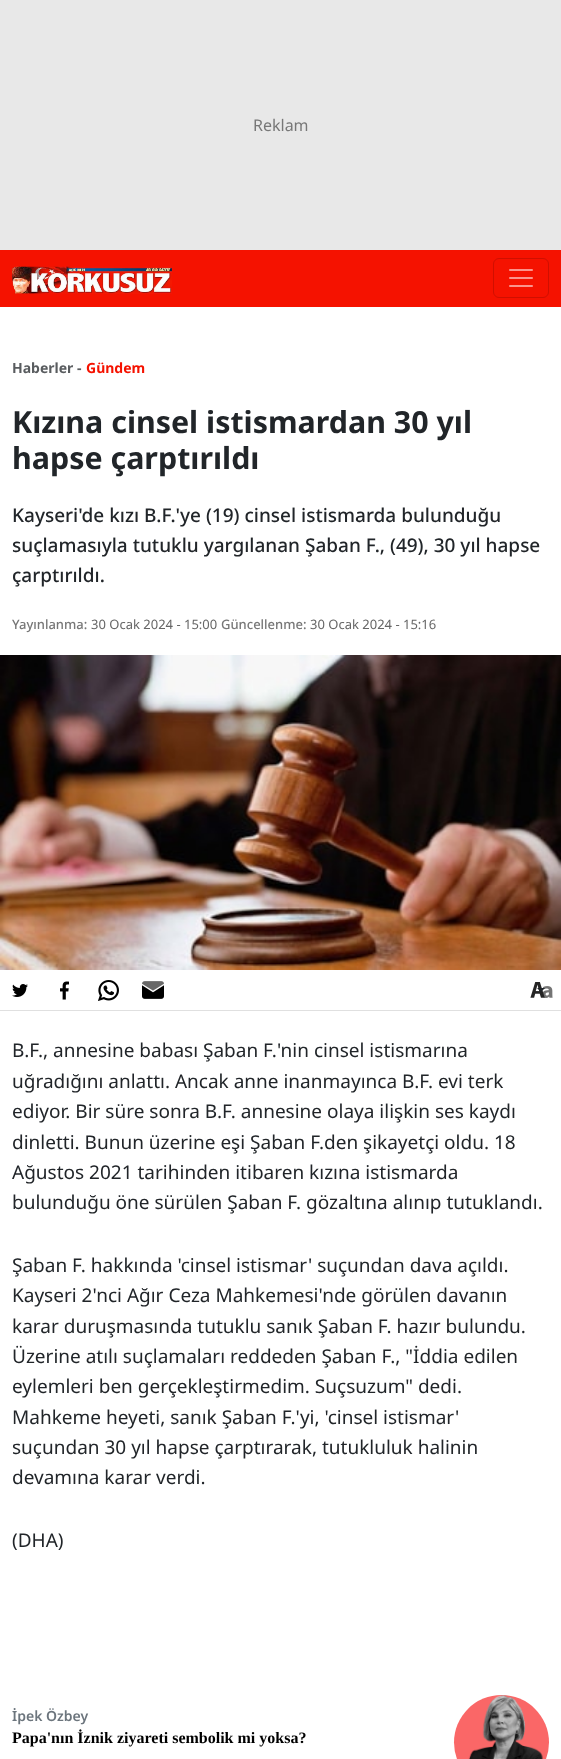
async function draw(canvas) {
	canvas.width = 561;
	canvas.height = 1759;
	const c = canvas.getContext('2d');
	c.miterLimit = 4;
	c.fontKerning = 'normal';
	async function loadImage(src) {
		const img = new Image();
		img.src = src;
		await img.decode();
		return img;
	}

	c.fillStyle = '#fff';
	c.fillRect(0, 0, 561, 1759);
	c.fillStyle = '#e8e8e8';
	c.fillRect(0, 0, 561, 250);
	c.font = '16px Noto Sans';
	c.fillStyle = '#777';
	c.fillText('Reklam', 253, 131);
	c.fillStyle = '#f51200';
	c.fillRect(0, 250, 561, 57);
	c.drawImage(await loadImage('img1.png'), 12, 266, 160, 28);
	c.beginPath();
	c.roundRect(493.5, 258.5, 55, 39, 5.5);
	c.strokeStyle = '#d00f00';
	c.stroke();
	c.drawImage(await loadImage('img2.png'), 509, 269, 24, 18);
	c.font = 'bold 14px Noto Sans';
	c.fillStyle = '#595c5f';
	c.fillText('Haberler -', 12, 373);
	c.fillStyle = '#f51200';
	c.fillText('Gündem', 86, 373);
	c.font = 'bold 30.4px Noto Sans';
	c.fillStyle = '#212529';
	c.fillText('Kızına cinsel istismardan 30 yıl', 12, 433);
	c.fillText('hapse çarptırıldı', 12, 469);
	c.font = '500 19px Noto Sans';
	for (const [text, x, y] of [
		['Kayseri\'de kızı B.F.\'ye (19) cinsel istismarda bulunduğu', 12, 522],
		['suçlamasıyla tutuklu yargılanan Şaban F., (49), 30 yıl hapse', 12, 552],
		['çarptırıldı.', 12, 582],
	]) {
		c.fillText(text, x, y);
	}
	c.font = '500 13px Noto Sans';
	c.fillStyle = '#777';
	c.fillText('Yayınlanma:', 12, 629);
	c.font = '13px Noto Sans';
	c.fillStyle = '#666';
	c.fillText('30 Ocak 2024 - 15:00', 91, 629);
	c.font = '500 13px Noto Sans';
	c.fillStyle = '#777';
	c.fillText('Güncellenme:', 221, 629);
	c.font = '13px Noto Sans';
	c.fillStyle = '#666';
	c.fillText('30 Ocak 2024 - 15:16', 310, 629);
	c.drawImage(await loadImage('img3.png'), 0, 655, 561, 315);
	c.fillStyle = '#e0e0e0';
	c.fillRect(0, 1010, 561, 1);
	c.drawImage(await loadImage('img4.png'), 12, 984, 16, 13);
	c.drawImage(await loadImage('img5.png'), 60, 981, 9, 19);
	c.drawImage(await loadImage('img6.png'), 98, 980, 21, 21);
	c.drawImage(await loadImage('img7.png'), 142, 981, 22, 18);
	c.drawImage(await loadImage('img8.png'), 530, 982, 23, 16);
	c.fillStyle = '#212529';
	c.beginPath();
	c.moveTo(537, 988);
	c.lineTo(545, 988);
	c.lineTo(541, 992);
	c.closePath();
	c.fill();
	c.font = '19px Noto Sans';
	for (const [text, x, y] of [
		['B.F., annesine babası Şaban F.\'nin cinsel istismarına', 12, 1057],
		['uğradığını anlattı. Ancak anne inanmayınca B.F. evi terk', 12, 1088],
		['ediyor. Bir süre sonra B.F. annesine olaya ilişkin ses kaydı', 12, 1118],
		['dinletti. Bunun üzerine eşi Şaban F.den şikayetçi oldu. 18', 12, 1149],
		['Ağustos 2021 tarihinden itibaren kızına istismarda', 12, 1179],
		['bulunduğu öne sürülen Şaban F. gözaltına alınıp tutuklandı.', 12, 1209],
		['Şaban F. hakkında \'cinsel istismar\' suçundan dava açıldı.', 12, 1272],
		['Kayseri 2\'nci Ağır Ceza Mahkemesi\'nde görülen davanın', 12, 1302],
		['karar duruşmasında tutuklu sanık Şaban F. hazır bulundu.', 12, 1333],
		['Üzerine atılı suçlamaları reddeden Şaban F., "İddia edilen', 12, 1363],
		['eylemleri ben gerçekleştirmedim. Suçsuzum" dedi.', 12, 1393],
		['Mahkeme heyeti, sanık Şaban F.\'yi, \'cinsel istismar\'', 12, 1424],
		['suçundan 30 yıl hapse çarptırarak, tutukluluk halinin', 12, 1454],
		['devamına karar verdi.', 12, 1484],
		['(DHA)', 12, 1547],
	]) {
		c.fillText(text, x, y);
	}
	c.font = '600 14px Noto Sans';
	c.fillStyle = '#6c757d';
	c.fillText('İpek Özbey', 12, 1721);
	c.font = 'bold 16px Liberation Serif';
	c.fillStyle = '#000';
	c.fillText('Papa\'nın İznik ziyareti sembolik mi yoksa?', 12, 1743);
	c.fillStyle = '#fa6767';
	c.beginPath();
	c.arc(501.5, 1742.5, 47.5, 0, 2 * Math.PI);
	c.fill();
	c.drawImage(await loadImage('img9.png'), 468, 1695, 75, 64);
}

draw(document.querySelector('canvas'));
